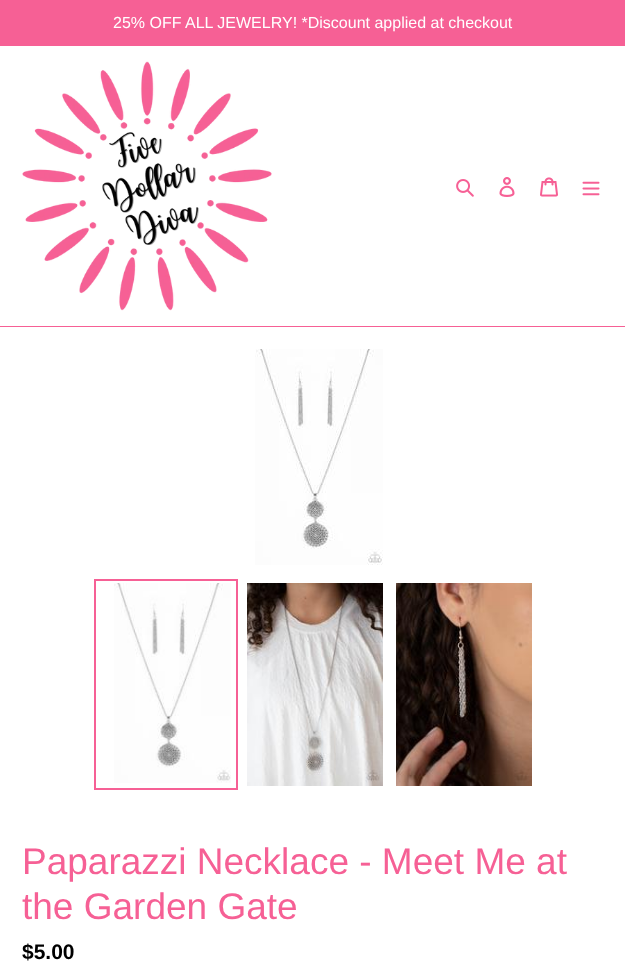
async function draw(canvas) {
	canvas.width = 625;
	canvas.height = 974;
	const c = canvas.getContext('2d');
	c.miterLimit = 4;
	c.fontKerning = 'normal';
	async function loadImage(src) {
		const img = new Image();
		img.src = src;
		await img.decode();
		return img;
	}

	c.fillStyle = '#fff';
	c.fillRect(0, 0, 625, 974);
	c.fillStyle = '#f66095';
	c.fillRect(0, 0, 625, 46);
	c.font = '16px Liberation Sans';
	c.fillStyle = '#fff';
	c.fillText('25% OFF ALL JEWELRY! *Discount applied at checkout', 113, 28);
	c.fillStyle = '#f66095';
	c.fillRect(0, 326, 625, 1);
	c.drawImage(await loadImage('img1.png'), 22, 61, 250, 250);
	c.drawImage(await loadImage('img2.png'), 456, 179, 18, 18);
	c.drawImage(await loadImage('img3.png'), 499, 177, 16, 20);
	c.drawImage(await loadImage('img4.png'), 540, 177, 18, 20);
	c.drawImage(await loadImage('img5.png'), 582, 181, 18, 15);
	c.drawImage(await loadImage('img6.png'), 255, 349, 128, 216);
	c.strokeStyle = '#f66095';
	c.lineWidth = 2;
	c.strokeRect(95, 580, 142, 209);
	c.drawImage(await loadImage('img7.png'), 114, 583, 117, 200);
	c.drawImage(await loadImage('img8.png'), 247, 583, 136, 203);
	c.drawImage(await loadImage('img9.png'), 396, 583, 136, 203);
	c.font = '37px Liberation Sans';
	c.fillText('Paparazzi Necklace - Meet Me at', 22, 874);
	c.fillText('the Garden Gate', 22, 919);
	c.font = 'bold 21px Liberation Sans';
	c.fillStyle = '#000';
	c.fillText('$5.00', 22, 959);
}

draw(document.querySelector('canvas'));
